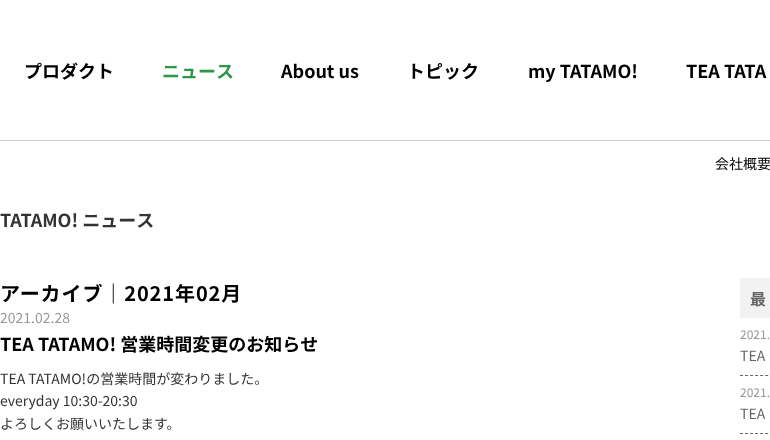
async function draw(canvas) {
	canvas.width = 770;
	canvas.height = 440;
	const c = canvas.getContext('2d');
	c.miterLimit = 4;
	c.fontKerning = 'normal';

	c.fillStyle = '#fff';
	c.fillRect(0, 0, 770, 440);
	c.font = 'bold 18px Noto Sans JP';
	c.fillStyle = '#000';
	c.fillText('プロダクト', 24, 78);
	c.fillStyle = '#2b9747';
	c.fillText('ニュース', 162, 78);
	c.fillStyle = '#000';
	for (const [text, x, y] of [
		['About us', 281, 78],
		['トピック', 407, 78],
		['my TATAMO!', 528, 78],
		['TEA TATA', 686, 78],
	]) {
		c.fillText(text, x, y);
	}
	c.fillStyle = '#ccc';
	c.fillRect(0, 140, 770, 1);
	c.font = '14px Noto Sans JP';
	c.fillStyle = '#000';
	c.fillText('会社概要', 715, 169);
	c.font = 'bold 18px Noto Sans JP';
	c.fillStyle = '#333';
	c.fillText('TATAMO! ニュース', 0, 227);
	c.letterSpacing = '0.9px';
	c.font = 'bold 20px Noto Sans JP';
	c.fillStyle = '#000';
	c.fillText('アーカイブ｜2021年02月', 0, 301);
	c.letterSpacing = '0px';
	c.font = '14px Noto Sans JP';
	c.fillStyle = '#999';
	c.fillText('2021.02.28', 0, 323);
	c.font = 'bold 18px Noto Sans JP';
	c.fillStyle = '#000';
	c.fillText('TEA TATAMO! 営業時間変更のお知らせ', 0, 351);
	c.font = '14px Noto Sans JP';
	c.fillStyle = '#333';
	for (const [text, x, y] of [
		['TEA TATAMO!の営業時間が変わりました。', 0, 384],
		['everyday 10:30-20:30', 0, 406],
		['よろしくお願いいたします。', 0, 429],
	]) {
		c.fillText(text, x, y);
	}
	c.fillStyle = '#f2f2f2';
	c.fillRect(740, 278, 30, 40);
	c.font = 'bold 16px Noto Sans JP';
	c.fillStyle = '#666';
	c.fillText('最', 750, 305);
	c.beginPath();
	c.moveTo(740, 375.5);
	c.lineTo(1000, 375.5);
	c.moveTo(740, 433.5);
	c.lineTo(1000, 433.5);
	c.strokeStyle = '#666';
	c.setLineDash([3, 2.04]);
	c.stroke();
	c.font = '12px Noto Sans JP';
	c.fillStyle = '#999';
	c.fillText('2021.', 740, 339);
	c.font = '14px Noto Sans JP';
	c.fillStyle = '#666';
	c.fillText('TEA', 740, 361);
	c.font = '12px Noto Sans JP';
	c.fillStyle = '#999';
	c.fillText('2021.', 740, 397);
	c.font = '14px Noto Sans JP';
	c.fillStyle = '#666';
	c.fillText('TEA', 740, 419);
}

draw(document.querySelector('canvas'));
